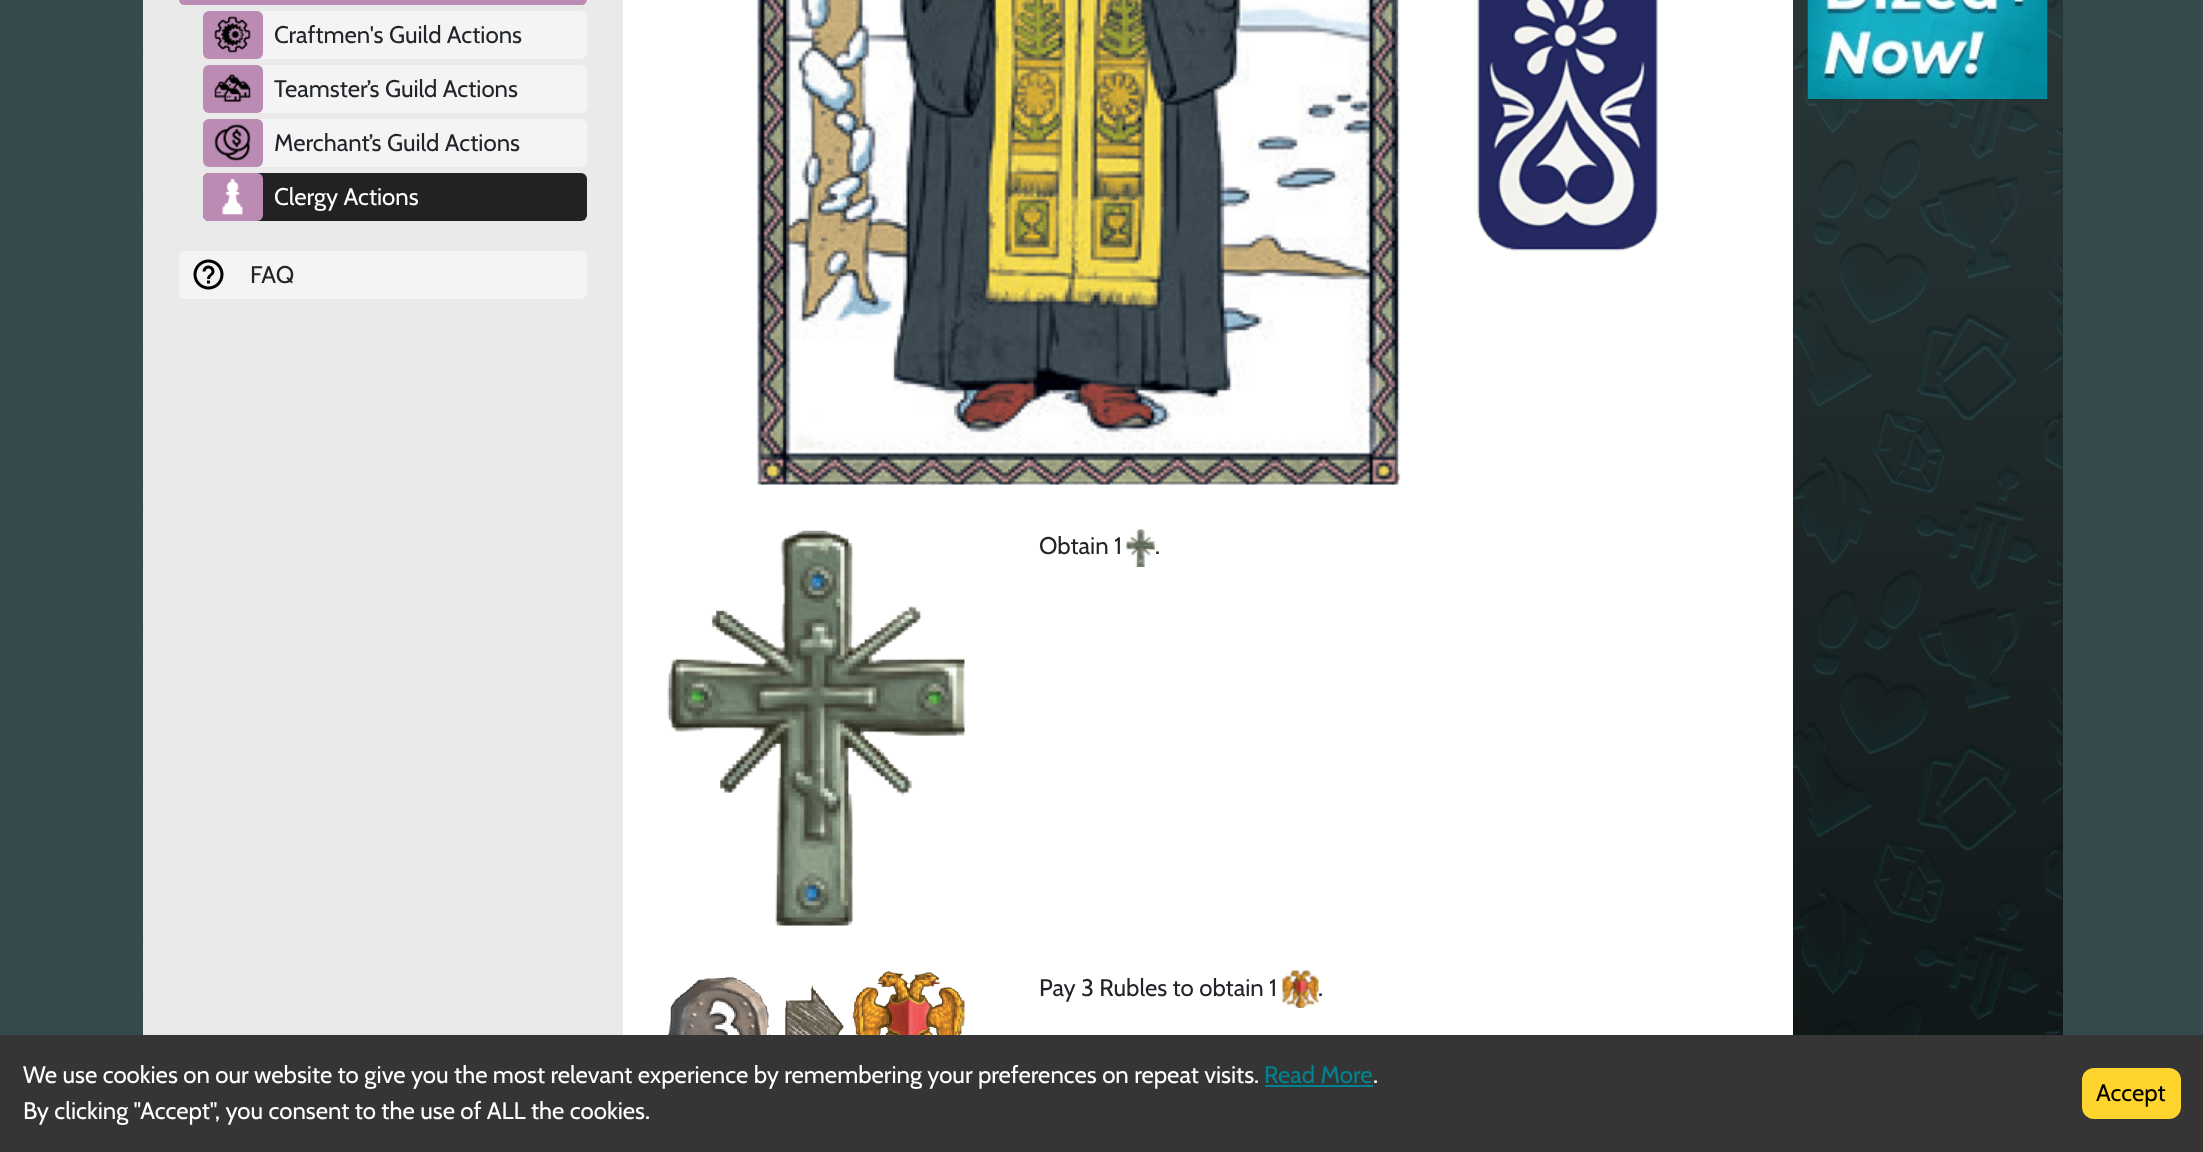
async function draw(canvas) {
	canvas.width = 2203;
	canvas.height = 1152;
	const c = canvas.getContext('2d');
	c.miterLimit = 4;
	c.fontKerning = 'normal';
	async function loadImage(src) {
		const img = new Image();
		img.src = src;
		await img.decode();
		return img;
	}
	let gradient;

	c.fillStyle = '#374a4e';
	c.fillRect(0, 0, 2203, 1152);
	gradient = c.createLinearGradient(1102, -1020, 1103, 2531);
	gradient.addColorStop(0, '#374a4e');
	gradient.addColorStop(0.2, '#304042');
	gradient.addColorStop(0.6, '#0f1515');
	c.fillStyle = gradient;
	c.fillRect(1793, 0, 270, 1035);
	c.drawImage(await loadImage('img1.png'), 142, 0, 1921, 1035);
	c.fillStyle = '#eaeaea';
	c.fillRect(143, 0, 480, 1035);
	c.fillStyle = '#bc8bb4';
	c.beginPath();
	c.roundRect(179, -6, 408, 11, 6);
	c.fill();
	c.fillStyle = '#f4f4f4';
	c.beginPath();
	c.roundRect(203, 11, 384, 48, 6);
	c.fill();
	c.fillStyle = '#bc8bb4';
	c.beginPath();
	c.roundRect(203, 11, 60, 48, 6);
	c.fill();
	c.drawImage(await loadImage('img2.png'), 214, 16, 37, 37);
	c.font = '24px Cabin';
	c.fillStyle = '#212529';
	c.fillText('Craftmen\'s Guild Actions', 274, 43);
	c.fillStyle = '#f4f4f4';
	c.beginPath();
	c.roundRect(203, 65, 384, 48, 6);
	c.fill();
	c.fillStyle = '#bc8bb4';
	c.beginPath();
	c.roundRect(203, 65, 60, 48, 6);
	c.fill();
	c.drawImage(await loadImage('img3.png'), 214, 73, 37, 30);
	c.fillStyle = '#212529';
	c.fillText('Teamster’s Guild Actions', 274, 97);
	c.fillStyle = '#f4f4f4';
	c.beginPath();
	c.roundRect(203, 119, 384, 48, 6);
	c.fill();
	c.fillStyle = '#bc8bb4';
	c.beginPath();
	c.roundRect(203, 119, 60, 48, 6);
	c.fill();
	c.drawImage(await loadImage('img4.png'), 214, 124, 37, 37);
	c.fillStyle = '#212529';
	c.fillText('Merchant’s Guild Actions', 274, 151);
	c.fillStyle = '#222';
	c.beginPath();
	c.roundRect(203, 173, 384, 48, 6);
	c.fill();
	c.fillStyle = '#bc8bb4';
	c.beginPath();
	c.roundRect(203, 173, 60, 48, 6);
	c.fill();
	c.drawImage(await loadImage('img5.png'), 222, 178, 21, 37);
	c.fillStyle = '#fff';
	c.fillText('Clergy Actions', 274, 205);
	c.fillStyle = '#f4f4f4';
	c.beginPath();
	c.roundRect(179, 251, 408, 48, 6);
	c.fill();
	c.drawImage(await loadImage('img6.png'), 193, 259, 31, 31);
	c.fillStyle = '#212529';
	c.fillText('FAQ', 250, 283);
	c.drawImage(await loadImage('img7.png'), 1807, 0, 241, 99);
	c.fillStyle = '#fff';
	c.fillRect(623, 0, 1170, 1035);
	c.drawImage(await loadImage('img8.png'), 757, 0, 901, 485);
	c.drawImage(await loadImage('img9.png'), 667, 530, 298, 396);
	c.fillStyle = '#212529';
	c.fillText('Obtain 1', 1039, 554);
	c.drawImage(await loadImage('img10.png'), 1126, 529, 29, 38);
	c.fillText('.', 1155, 554);
	c.drawImage(await loadImage('img11.png'), 668, 971, 297, 64);
	c.fillText('Pay 3 Rubles to obtain 1', 1039, 996);
	c.drawImage(await loadImage('img12.png'), 1282, 970, 37, 38);
	c.fillText('.', 1318, 996);
	c.fillStyle = '#353535';
	c.fillRect(0, 1035, 2203, 117);
	c.fillStyle = '#fff';
	c.fillText('We use cookies on our website to give you the most relevant experience by remembering your preferences on repeat visits.', 23, 1083);
	c.fillStyle = '#00838f';
	c.fillText('Read More', 1264, 1083);
	c.fillRect(1265, 1085, 108, 2);
	c.fillStyle = '#fff';
	c.fillText('.', 1373, 1083);
	c.fillText('By clicking "Accept", you consent to the use of ALL the cookies.', 23, 1119);
	c.fillStyle = '#ffd42d';
	c.beginPath();
	c.roundRect(2082, 1068, 99, 51, 12);
	c.fill();
	c.fillStyle = '#000';
	c.fillText('Accept', 2096, 1101);
}

draw(document.querySelector('canvas'));
